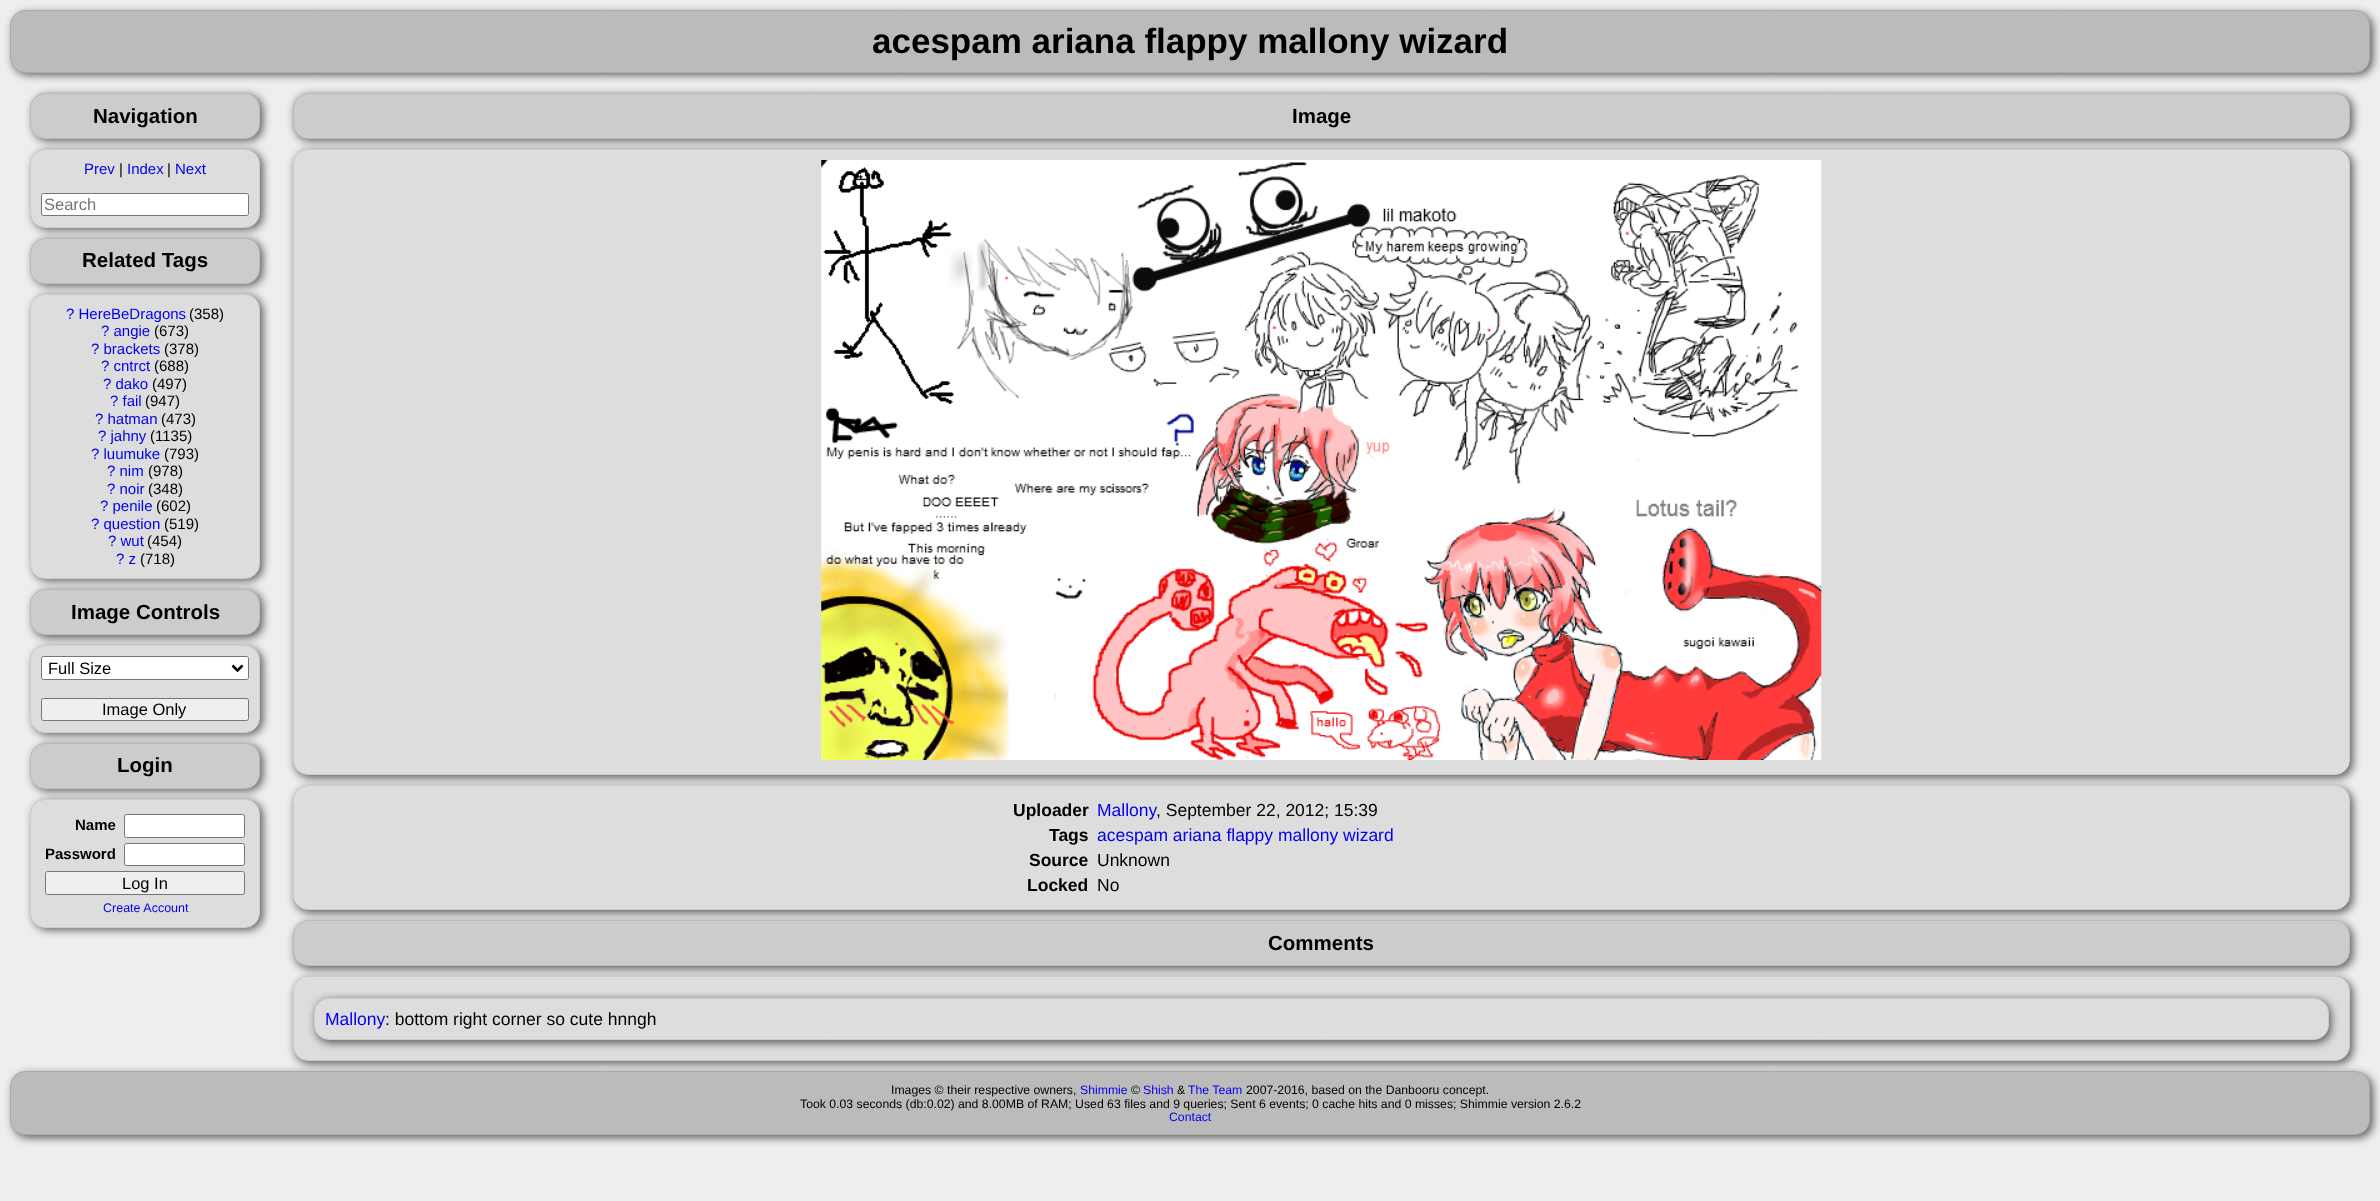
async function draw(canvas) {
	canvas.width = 2380;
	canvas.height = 1201;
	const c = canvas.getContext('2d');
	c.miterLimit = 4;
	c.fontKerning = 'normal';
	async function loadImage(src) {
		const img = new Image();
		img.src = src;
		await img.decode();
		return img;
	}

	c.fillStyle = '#eee';
	c.fillRect(0, 0, 2380, 1201);
	c.fillStyle = '#00000099';
	c.filter = 'blur(4px)';
	c.beginPath();
	c.roundRect(13, 13, 2360, 62, 15);
	c.fill();
	c.filter = 'none';
	c.fillStyle = '#bbb';
	c.beginPath();
	c.roundRect(10.5, 10.5, 2359, 62, 14.5);
	c.fill();
	c.strokeStyle = '#aaa';
	c.stroke();
	c.font = 'bold 35px Liberation Sans';
	c.fillStyle = '#000';
	c.fillText('acespam ariana flappy mallony wizard', 872, 53);
	c.fillStyle = '#00000099';
	c.filter = 'blur(4px)';
	c.beginPath();
	c.roundRect(33, 95, 230, 46, 15);
	c.fill();
	c.filter = 'none';
	c.fillStyle = '#ccc';
	c.beginPath();
	c.roundRect(30.5, 93.5, 229, 45, 14.5);
	c.fill();
	c.strokeStyle = '#bbb';
	c.stroke();
	c.font = 'bold 20.5px Liberation Sans';
	c.fillStyle = '#000';
	c.fillText('Navigation', 93, 123);
	c.fillStyle = '#00000099';
	c.filter = 'blur(4px)';
	c.beginPath();
	c.roundRect(33, 240, 230, 46, 15);
	c.fill();
	c.filter = 'none';
	c.fillStyle = '#ccc';
	c.beginPath();
	c.roundRect(30.5, 238.5, 229, 45, 14.5);
	c.fill();
	c.stroke();
	c.fillStyle = '#00000099';
	c.filter = 'blur(4px)';
	c.beginPath();
	c.roundRect(33, 151, 230, 79, 15);
	c.fill();
	c.filter = 'none';
	c.fillStyle = '#ddd';
	c.beginPath();
	c.roundRect(30.5, 149.5, 229, 78, 14.5);
	c.fill();
	c.strokeStyle = '#ccc';
	c.stroke();
	c.font = '15px Liberation Sans';
	c.fillStyle = '#00e';
	c.fillText('Prev', 84, 174);
	c.fillStyle = '#000';
	c.fillText('|', 119, 174);
	c.fillStyle = '#00e';
	c.fillText('Index', 127, 174);
	c.fillStyle = '#000';
	c.fillText('|', 167, 174);
	c.fillStyle = '#00e';
	c.fillText('Next', 175, 174);
	c.fillStyle = '#fff';
	c.beginPath();
	c.roundRect(41.5, 193.5, 207, 22, 2);
	c.fill();
	c.strokeStyle = '#767676';
	c.stroke();
	c.font = '16.5px Liberation Sans';
	c.fillStyle = '#757575';
	c.fillText('Search', 44, 210);
	c.font = 'bold 20.5px Liberation Sans';
	c.fillStyle = '#000';
	c.fillText('Related Tags', 82, 267);
	c.fillStyle = '#00000099';
	c.filter = 'blur(4px)';
	c.beginPath();
	c.roundRect(33, 591, 230, 47, 15);
	c.fill();
	c.filter = 'none';
	c.fillStyle = '#ccc';
	c.beginPath();
	c.roundRect(30.5, 589.5, 229, 45, 14.5);
	c.fill();
	c.strokeStyle = '#bbb';
	c.stroke();
	c.fillStyle = '#00000099';
	c.filter = 'blur(4px)';
	c.beginPath();
	c.roundRect(33, 296, 230, 285, 15);
	c.fill();
	c.filter = 'none';
	c.fillStyle = '#ddd';
	c.beginPath();
	c.roundRect(30.5, 294.5, 229, 284, 14.5);
	c.fill();
	c.strokeStyle = '#ccc';
	c.stroke();
	c.font = '15px Liberation Sans';
	c.fillStyle = '#00e';
	c.fillText('? HereBeDragons', 66, 319);
	c.fillStyle = '#000';
	c.fillText('(358)', 189, 319);
	c.fillStyle = '#00e';
	c.fillText('? angie', 101, 336);
	c.fillStyle = '#000';
	c.fillText('(673)', 154, 336);
	c.fillStyle = '#00e';
	c.fillText('? brackets', 91, 354);
	c.fillStyle = '#000';
	c.fillText('(378)', 164, 354);
	c.fillStyle = '#00e';
	c.fillText('? cntrct', 101, 371);
	c.fillStyle = '#000';
	c.fillText('(688)', 154, 371);
	c.fillStyle = '#00e';
	c.fillText('? dako', 103, 389);
	c.fillStyle = '#000';
	c.fillText('(497)', 152, 389);
	c.fillStyle = '#00e';
	c.fillText('? fail', 110, 406);
	c.fillStyle = '#000';
	c.fillText('(947)', 145, 406);
	c.fillStyle = '#00e';
	c.fillText('? hatman', 95, 424);
	c.fillStyle = '#000';
	c.fillText('(473)', 161, 424);
	c.fillStyle = '#00e';
	c.fillText('? jahny', 98, 441);
	c.fillStyle = '#000';
	c.fillText('(1135)', 150, 441);
	c.fillStyle = '#00e';
	c.fillText('? luumuke', 91, 459);
	c.fillStyle = '#000';
	c.fillText('(793)', 164, 459);
	c.fillStyle = '#00e';
	c.fillText('? nim', 107, 476);
	c.fillStyle = '#000';
	c.fillText('(978)', 148, 476);
	c.fillStyle = '#00e';
	c.fillText('? noir', 107, 494);
	c.fillStyle = '#000';
	c.fillText('(348)', 148, 494);
	c.fillStyle = '#00e';
	c.fillText('? penile', 100, 511);
	c.fillStyle = '#000';
	c.fillText('(602)', 156, 511);
	c.fillStyle = '#00e';
	c.fillText('? question', 91, 529);
	c.fillStyle = '#000';
	c.fillText('(519)', 164, 529);
	c.fillStyle = '#00e';
	c.fillText('? wut', 108, 546);
	c.fillStyle = '#000';
	c.fillText('(454)', 147, 546);
	c.fillStyle = '#00e';
	c.fillText('? z', 116, 564);
	c.fillStyle = '#000';
	c.fillText('(718)', 140, 564);
	c.font = 'bold 20.5px Liberation Sans';
	c.fillText('Image Controls', 71, 619);
	c.fillStyle = '#00000099';
	c.filter = 'blur(4px)';
	c.beginPath();
	c.roundRect(33, 745, 230, 46, 15);
	c.fill();
	c.filter = 'none';
	c.fillStyle = '#ccc';
	c.beginPath();
	c.roundRect(30.5, 743.5, 229, 45, 14.5);
	c.fill();
	c.strokeStyle = '#bbb';
	c.stroke();
	c.fillStyle = '#00000099';
	c.filter = 'blur(4px)';
	c.beginPath();
	c.roundRect(33, 648, 230, 87, 15);
	c.fill();
	c.filter = 'none';
	c.fillStyle = '#ddd';
	c.beginPath();
	c.roundRect(30.5, 645.5, 229, 87, 14.5);
	c.fill();
	c.strokeStyle = '#ccc';
	c.stroke();
	c.fillStyle = '#fff';
	c.beginPath();
	c.roundRect(41.5, 656.5, 207, 23, 2);
	c.fill();
	c.strokeStyle = '#767676';
	c.stroke();
	c.beginPath();
	c.moveTo(232.5, 665.5);
	c.lineTo(237.5, 670.5);
	c.lineTo(242.5, 665.5);
	c.strokeStyle = '#000';
	c.lineWidth = 2.5;
	c.stroke();
	c.font = '16.5px Liberation Sans';
	c.fillStyle = '#000';
	c.fillText('Full Size', 48, 674);
	c.fillStyle = '#efefef';
	c.beginPath();
	c.roundRect(41.5, 698.5, 207, 22, 2);
	c.fill();
	c.strokeStyle = '#767676';
	c.lineWidth = 1;
	c.stroke();
	c.fillStyle = '#000';
	c.fillText('Image Only', 102, 715);
	c.font = 'bold 20.5px Liberation Sans';
	c.fillText('Login', 117, 772);
	c.fillStyle = '#00000099';
	c.filter = 'blur(4px)';
	c.beginPath();
	c.roundRect(33, 801, 230, 129, 15);
	c.fill();
	c.filter = 'none';
	c.fillStyle = '#ddd';
	c.beginPath();
	c.roundRect(30.5, 799.5, 229, 128, 14.5);
	c.fill();
	c.strokeStyle = '#ccc';
	c.stroke();
	c.font = 'bold 15px Liberation Sans';
	c.fillStyle = '#000';
	c.fillText('Name', 75, 830);
	c.fillStyle = '#fff';
	c.beginPath();
	c.roundRect(124.5, 814.5, 120, 23, 2);
	c.fill();
	c.strokeStyle = '#767676';
	c.stroke();
	c.fillStyle = '#000';
	c.fillText('Password', 45, 859);
	c.fillStyle = '#fff';
	c.beginPath();
	c.roundRect(124.5, 843.5, 120, 22, 2);
	c.fill();
	c.stroke();
	c.fillStyle = '#efefef';
	c.beginPath();
	c.roundRect(45.5, 871.5, 199, 23, 2);
	c.fill();
	c.stroke();
	c.font = '16.5px Liberation Sans';
	c.fillStyle = '#000';
	c.fillText('Log In', 122, 889);
	c.font = '12.5px Liberation Sans';
	c.fillStyle = '#00e';
	c.fillText('Create Account', 103, 912);
	c.fillStyle = '#00000099';
	c.filter = 'blur(4px)';
	c.beginPath();
	c.roundRect(295, 95, 2058, 46, 15);
	c.fill();
	c.filter = 'none';
	c.fillStyle = '#ccc';
	c.beginPath();
	c.roundRect(293.5, 93.5, 2056, 45, 14.5);
	c.fill();
	c.strokeStyle = '#bbb';
	c.stroke();
	c.font = 'bold 20.5px Liberation Sans';
	c.fillStyle = '#000';
	c.fillText('Image', 1292, 123);
	c.fillStyle = '#00000099';
	c.filter = 'blur(4px)';
	c.beginPath();
	c.roundRect(295, 151, 2058, 627, 15);
	c.fill();
	c.filter = 'none';
	c.fillStyle = '#ddd';
	c.beginPath();
	c.roundRect(293.5, 149.5, 2056, 625, 14.5);
	c.fill();
	c.strokeStyle = '#ccc';
	c.stroke();
	c.drawImage(await loadImage('img1.png'), 821, 160, 1001, 600);
	c.fillStyle = '#00000099';
	c.filter = 'blur(4px)';
	c.beginPath();
	c.roundRect(295, 788, 2058, 125, 15);
	c.fill();
	c.filter = 'none';
	c.fillStyle = '#ddd';
	c.beginPath();
	c.roundRect(293.5, 785.5, 2056, 124, 14.5);
	c.fill();
	c.stroke();
	c.font = 'bold 17.5px Liberation Sans';
	c.fillStyle = '#000';
	c.fillText('Uploader', 1013, 816);
	c.font = '17.5px Liberation Sans';
	c.fillStyle = '#00e';
	c.fillText('Mallony', 1097, 816);
	c.fillStyle = '#000';
	c.fillText(', September 22, 2012; 15:39', 1156, 816);
	c.font = 'bold 17.5px Liberation Sans';
	c.fillText('Tags', 1049, 841);
	c.font = '17.5px Liberation Sans';
	c.fillStyle = '#00e';
	c.fillText('acespam ariana flappy mallony wizard', 1097, 841);
	c.font = 'bold 17.5px Liberation Sans';
	c.fillStyle = '#000';
	c.fillText('Source', 1029, 866);
	c.font = '17.5px Liberation Sans';
	c.fillText('Unknown', 1097, 866);
	c.font = 'bold 17.5px Liberation Sans';
	c.fillText('Locked', 1027, 891);
	c.font = '17.5px Liberation Sans';
	c.fillText('No', 1097, 891);
	c.fillStyle = '#00000099';
	c.filter = 'blur(4px)';
	c.beginPath();
	c.roundRect(295, 923, 2058, 46, 15);
	c.fill();
	c.filter = 'none';
	c.fillStyle = '#ccc';
	c.beginPath();
	c.roundRect(293.5, 920.5, 2056, 45, 14.5);
	c.fill();
	c.strokeStyle = '#bbb';
	c.stroke();
	c.font = 'bold 20.5px Liberation Sans';
	c.fillStyle = '#000';
	c.fillText('Comments', 1268, 950);
	c.fillStyle = '#00000099';
	c.filter = 'blur(4px)';
	c.beginPath();
	c.roundRect(295, 979, 2058, 85, 15);
	c.fill();
	c.filter = 'none';
	c.fillStyle = '#ddd';
	c.beginPath();
	c.roundRect(293.5, 976.5, 2056, 84, 14.5);
	c.fill();
	c.strokeStyle = '#ccc';
	c.stroke();
	c.fillStyle = '#00000099';
	c.filter = 'blur(4px)';
	c.beginPath();
	c.roundRect(316, 1000, 2015, 43, 15);
	c.fill();
	c.filter = 'none';
	c.fillStyle = '#ddd';
	c.beginPath();
	c.roundRect(314.5, 998.5, 2014, 41, 14.5);
	c.fill();
	c.stroke();
	c.font = '17.5px Liberation Sans';
	c.fillStyle = '#00e';
	c.fillText('Mallony', 325, 1025);
	c.fillStyle = '#000';
	c.fillText(': bottom right corner so cute hnngh', 385, 1025);
	c.fillStyle = '#00000099';
	c.filter = 'blur(4px)';
	c.beginPath();
	c.roundRect(13, 1074, 2360, 64, 15);
	c.fill();
	c.filter = 'none';
	c.fillStyle = '#bbb';
	c.beginPath();
	c.roundRect(10.5, 1071.5, 2359, 63, 14.5);
	c.fill();
	c.strokeStyle = '#aaa';
	c.stroke();
	c.font = '12.25px Liberation Sans';
	c.fillStyle = '#000';
	c.fillText('Images © their respective owners,', 891, 1094);
	c.fillStyle = '#00e';
	c.fillText('Shimmie', 1080, 1094);
	c.fillStyle = '#000';
	c.fillText('©', 1131, 1094);
	c.fillStyle = '#00e';
	c.fillText('Shish', 1143, 1094);
	c.fillStyle = '#000';
	c.fillText('&', 1177, 1094);
	c.fillStyle = '#00e';
	c.fillText('The Team', 1188, 1094);
	c.fillStyle = '#000';
	c.fillText('2007-2016, based on the Danbooru concept.', 1246, 1094);
	c.fillText('Took 0.03 seconds (db:0.02) and 8.00MB of RAM; Used 63 files and 9 queries; Sent 6 events; 0 cache hits and 0 misses; Shimmie version 2.6.2', 800, 1108);
	c.fillStyle = '#00e';
	c.fillText('Contact', 1169, 1121);
}

draw(document.querySelector('canvas'));
